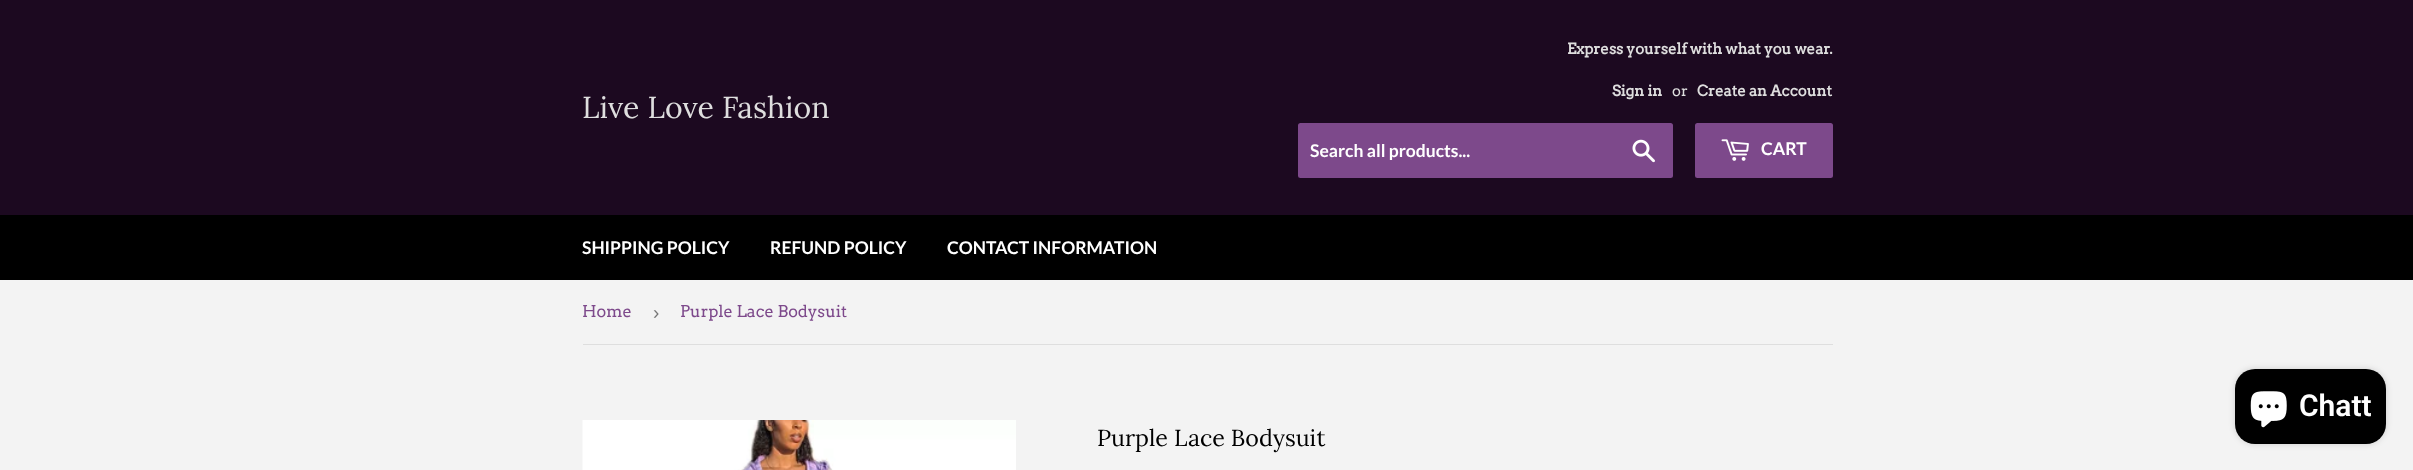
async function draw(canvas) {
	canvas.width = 2413;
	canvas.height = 470;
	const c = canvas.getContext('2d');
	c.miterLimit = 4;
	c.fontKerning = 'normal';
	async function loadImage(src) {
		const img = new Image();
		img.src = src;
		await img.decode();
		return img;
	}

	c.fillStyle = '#f3f3f3';
	c.fillRect(0, 0, 2413, 470);
	c.fillStyle = '#1c0920';
	c.fillRect(0, 0, 2413, 215);
	c.font = '30.25px Lora';
	c.fillStyle = '#dedede';
	c.fillText('Live Love Fashion', 582, 118);
	c.font = 'bold 14.9px Arvo';
	c.fillText('Express yourself with what you wear.', 1567, 54);
	c.fillText('Sign in', 1612, 96);
	c.font = '14.9px Arvo';
	c.fillText('or', 1672, 96);
	c.font = 'bold 14.9px Arvo';
	c.fillText('Create an Account', 1697, 96);
	c.fillStyle = '#7d498b';
	c.beginPath();
	c.roundRect(1298, 123, 375, 55, 2.5);
	c.fill();
	c.font = 'bold 17.5px Lato';
	c.fillStyle = '#fff';
	c.fillText('Search all products...', 1310, 157);
	c.drawImage(await loadImage('img1.png'), 1632, 139, 23, 24);
	c.fillStyle = '#7d498b';
	c.beginPath();
	c.roundRect(1695, 123, 138, 55, 2.5);
	c.fill();
	c.drawImage(await loadImage('img2.png'), 1721, 139, 28, 22);
	c.fillStyle = '#fff';
	c.fillText('CART', 1761, 155);
	c.fillStyle = '#000';
	c.fillRect(0, 215, 2413, 65);
	c.fillStyle = '#fff';
	for (const [text, x, y] of [
		['SHIPPING POLICY', 582, 254],
		['REFUND POLICY', 770, 254],
		['CONTACT INFORMATION', 947, 254],
	]) {
		c.fillText(text, x, y);
	}
	c.fillStyle = '#dedede';
	c.fillRect(583, 344, 1250, 1);
	c.font = '16.25px Arvo';
	c.fillStyle = '#7d498b';
	c.fillText('Home', 582, 317);
	c.font = '19px Liberation Sans';
	c.fillStyle = '#767676';
	c.fillText('›', 653, 319);
	c.font = '16.25px Arvo';
	c.fillStyle = '#7d498b';
	c.fillText('Purple Lace Bodysuit', 680, 317);
	c.drawImage(await loadImage('img3.png'), 582, 420, 434, 50);
	c.font = '23.25px Lora';
	c.fillStyle = '#000';
	c.fillText('Purple Lace Bodysuit', 1097, 446);
	c.fillStyle = '#00000026';
	c.filter = 'blur(3px)';
	c.beginPath();
	c.roundRect(2235, 369, 151, 75, 20);
	c.fill();
	c.filter = 'none';
	c.fillStyle = '#000';
	c.beginPath();
	c.roundRect(2235, 369, 151, 75, 20);
	c.fill();
	c.drawImage(await loadImage('img4.png'), 2250, 391, 37, 37);
	c.font = '600 30px Roboto';
	c.fillStyle = '#fff';
	c.fillText('Chatt', 2299, 416);
}

draw(document.querySelector('canvas'));
